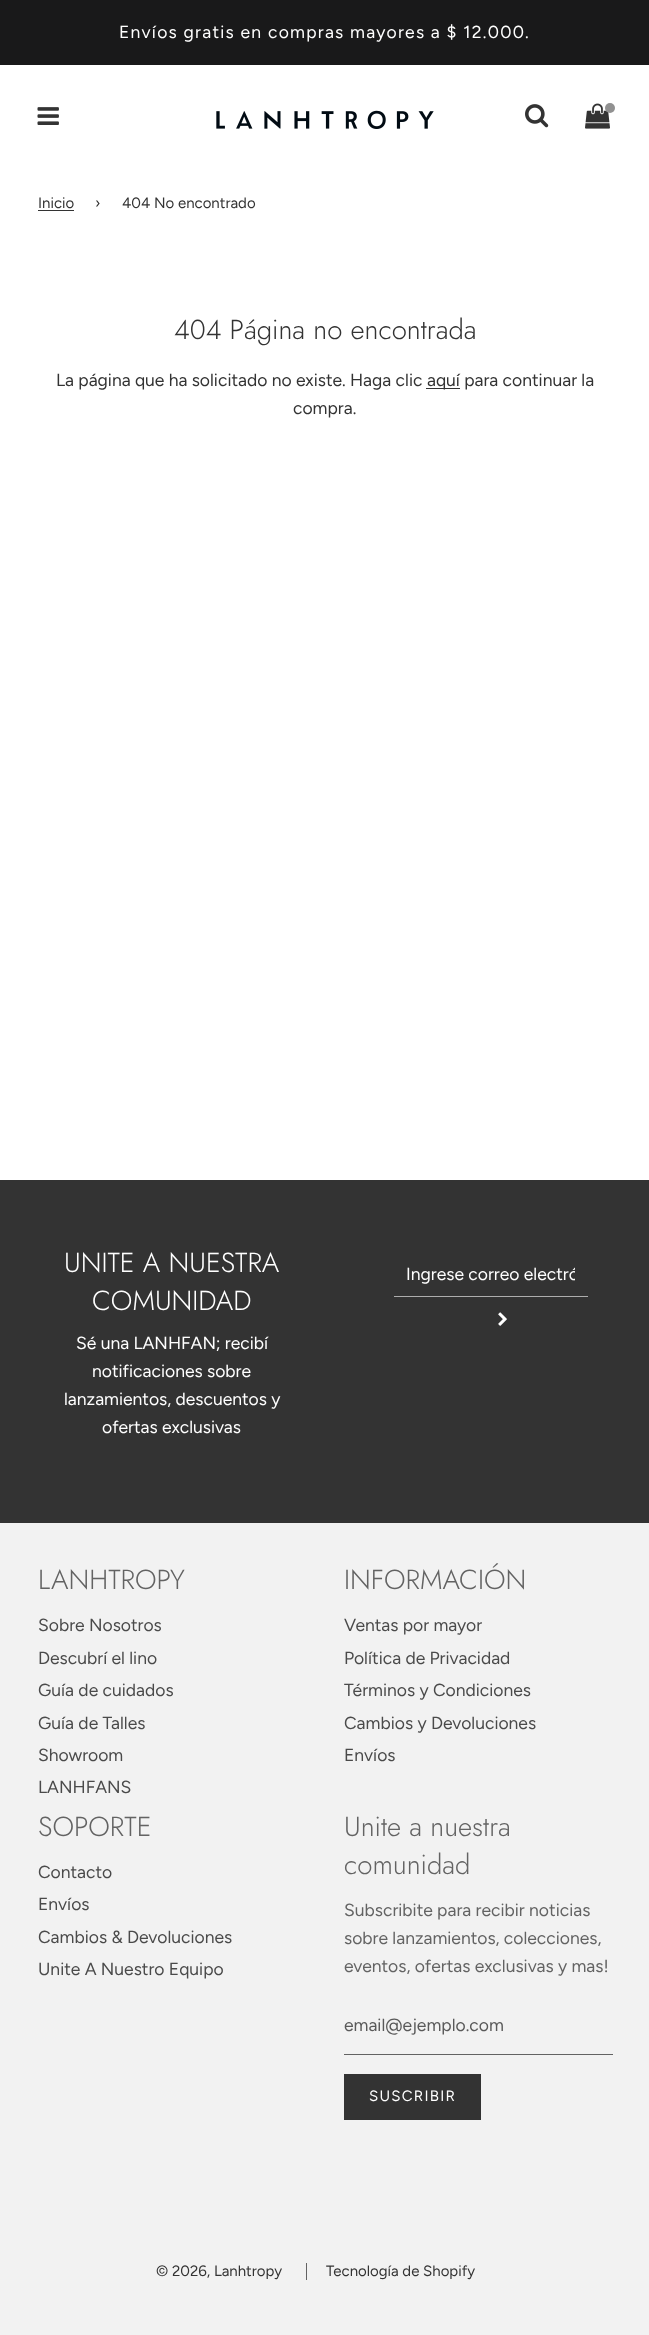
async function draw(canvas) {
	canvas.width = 649;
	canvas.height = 2335;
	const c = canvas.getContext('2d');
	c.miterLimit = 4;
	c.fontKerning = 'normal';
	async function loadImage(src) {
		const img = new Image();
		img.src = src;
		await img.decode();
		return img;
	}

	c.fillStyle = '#fff';
	c.fillRect(0, 0, 649, 2335);
	c.fillStyle = '#19191a';
	c.fillRect(0, 0, 649, 65);
	c.letterSpacing = '1.25px';
	c.font = '17.5px Figtree';
	c.fillStyle = '#fff';
	c.fillText('Envíos gratis en compras mayores a $ 12.000.', 119, 38);
	c.drawImage(await loadImage('img1.png'), 37, 107, 22, 18);
	c.drawImage(await loadImage('img2.png'), 216, 110, 218, 19);
	c.drawImage(await loadImage('img3.png'), 525, 104, 24, 24);
	c.drawImage(await loadImage('img4.png'), 585, 103, 25, 26);
	c.fillStyle = '#919191';
	c.beginPath();
	c.arc(610, 108, 5, 0, 2 * Math.PI);
	c.fill();
	c.letterSpacing = '0px';
	c.font = '15px Figtree';
	c.fillStyle = '#333';
	c.fillText('Inicio', 38, 208);
	c.fillRect(38, 210, 36, 1);
	c.fillText('›', 95, 208);
	c.fillText('404 No encontrado', 122, 208);
	c.font = '300 27.5px Jost';
	c.fillText('404 Página no encontrada', 174, 339);
	c.font = '17.5px Figtree';
	c.fillText('La página que ha solicitado no existe. Haga clic', 56, 386);
	c.fillRect(426, 388, 34, 1);
	c.fillText('aquí para continuar la', 427, 386);
	c.fillText('compra.', 293, 414);
	c.fillRect(0, 1180, 649, 343);
	c.font = '300 27.5px Jost';
	c.fillStyle = '#fff';
	c.fillText('UNITE A NUESTRA', 64, 1272);
	c.fillText('COMUNIDAD', 92, 1310);
	c.font = '17.5px Figtree';
	for (const [text, x, y] of [
		['Sé una LANHFAN; recibí', 76, 1349],
		['notificaciones sobre', 92, 1377],
		['lanzamientos, descuentos y', 64, 1405],
		['ofertas exclusivas', 102, 1433],
	]) {
		c.fillText(text, x, y);
	}
	c.fillStyle = '#adadad';
	c.fillRect(394, 1296, 194, 1);
	c.save();
	c.beginPath();
	c.rect(406, 1264, 169, 21);
	c.clip();
	c.fillStyle = '#fff';
	c.fillText('Ingrese correo electró', 406, 1280);
	c.restore();
	c.drawImage(await loadImage('img5.png'), 498, 1312, 9, 14);
	c.fillStyle = '#f2f2f2';
	c.fillRect(0, 1523, 649, 812);
	c.font = '300 27.5px Jost';
	c.fillStyle = '#636363';
	c.fillText('LANHTROPY', 38, 1589);
	c.font = '17.5px Figtree';
	c.fillStyle = '#4a4a4a';
	for (const [text, x, y] of [
		['Sobre Nosotros', 38, 1631],
		['Descubrí el lino', 38, 1664],
		['Guía de cuidados', 38, 1696],
		['Guía de Talles', 38, 1729],
		['Showroom', 38, 1761],
		['LANHFANS', 38, 1793],
	]) {
		c.fillText(text, x, y);
	}
	c.font = '300 27.5px Jost';
	c.fillStyle = '#636363';
	c.fillText('INFORMACIÓN', 344, 1589);
	c.font = '17.5px Figtree';
	c.fillStyle = '#4a4a4a';
	for (const [text, x, y] of [
		['Ventas por mayor', 344, 1631],
		['Política de Privacidad', 344, 1664],
		['Términos y Condiciones', 344, 1696],
		['Cambios y Devoluciones', 344, 1729],
		['Envíos', 344, 1761],
	]) {
		c.fillText(text, x, y);
	}
	c.font = '300 27.5px Jost';
	c.fillStyle = '#636363';
	c.fillText('SOPORTE', 38, 1836);
	c.font = '17.5px Figtree';
	c.fillStyle = '#4a4a4a';
	for (const [text, x, y] of [
		['Contacto', 38, 1878],
		['Envíos', 38, 1910],
		['Cambios & Devoluciones', 38, 1943],
		['Unite A Nuestro Equipo', 38, 1975],
	]) {
		c.fillText(text, x, y);
	}
	c.font = '300 27.5px Jost';
	c.fillStyle = '#636363';
	c.fillText('Unite a nuestra', 344, 1836);
	c.fillText('comunidad', 344, 1874);
	c.font = '17.5px Figtree';
	for (const [text, x, y] of [
		['Subscribite para recibir noticias', 344, 1916],
		['sobre lanzamientos, colecciones,', 344, 1944],
		['eventos, ofertas exclusivas y mas!', 344, 1972],
	]) {
		c.fillText(text, x, y);
	}
	c.fillRect(344, 2054, 269, 1);
	c.fillStyle = '#595959';
	c.fillText('email@ejemplo.com', 344, 2031);
	c.fillStyle = '#333';
	c.fillRect(344, 2074, 137, 46);
	c.letterSpacing = '1.25px';
	c.font = '15px Figtree';
	c.fillStyle = '#fff';
	c.fillText('SUSCRIBIR', 369, 2101);
	c.letterSpacing = '0px';
	c.fillStyle = '#333';
	c.fillText('© 2026, Lanhtropy', 156, 2276);
	c.fillStyle = '#636363';
	c.fillRect(306, 2263, 1, 17);
	c.fillStyle = '#333';
	c.fillText('Tecnología de Shopify', 326, 2276);
}

draw(document.querySelector('canvas'));
